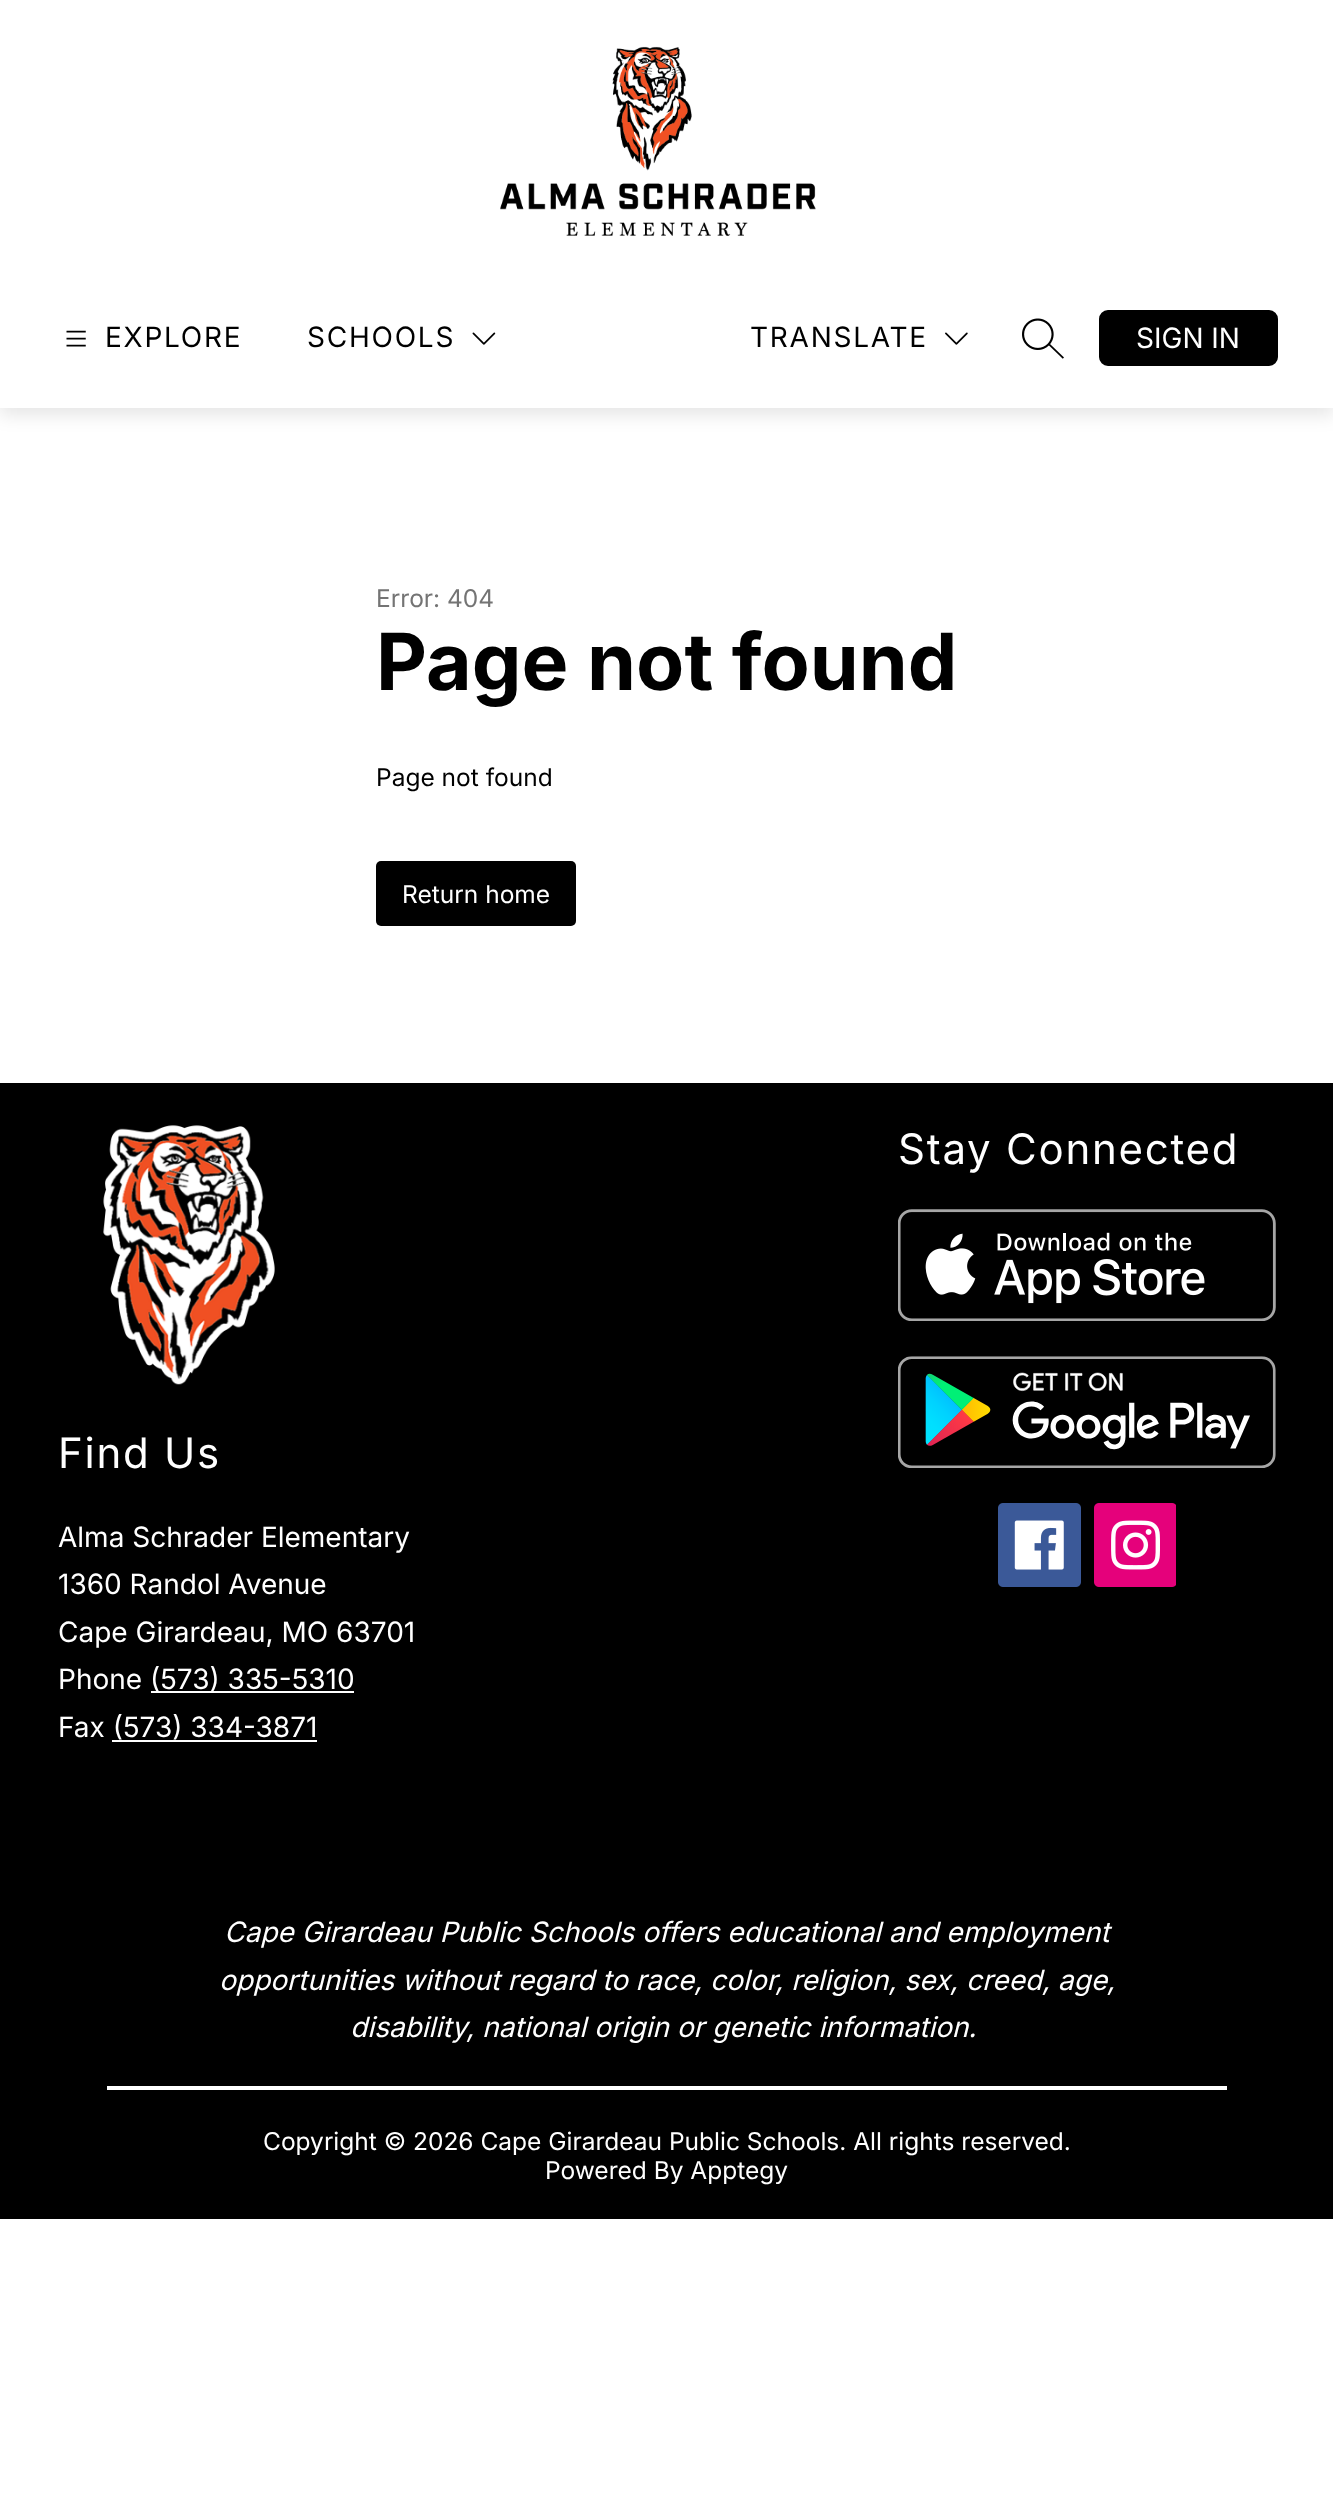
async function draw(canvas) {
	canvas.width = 1333;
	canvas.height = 2511;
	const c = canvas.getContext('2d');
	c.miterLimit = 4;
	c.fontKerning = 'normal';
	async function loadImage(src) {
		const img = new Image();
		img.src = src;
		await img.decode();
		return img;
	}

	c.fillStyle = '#fff';
	c.fillRect(0, 0, 1333, 2511);
	c.fillStyle = '#0000001a';
	c.filter = 'blur(9px)';
	c.beginPath();
	c.rect(0, 7, 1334, 408);
	c.fill();
	c.filter = 'none';
	c.fillStyle = '#fff';
	c.fillRect(0, 0, 1333, 408);
	c.drawImage(await loadImage('img1.png'), 500, 46, 316, 190);
	c.drawImage(await loadImage('img2.png'), 66, 330, 20, 17);
	c.letterSpacing = '1.75px';
	c.font = '28px Inter';
	c.fillStyle = '#000';
	c.fillText('EXPLORE', 105, 347);
	c.fillText('SCHOOLS', 307, 347);
	c.drawImage(await loadImage('img3.png'), 472, 332, 24, 13);
	c.fillText('TRANSLATE', 750, 347);
	c.drawImage(await loadImage('img4.png'), 945, 332, 23, 13);
	c.drawImage(await loadImage('img5.png'), 1022, 318, 42, 41);
	c.beginPath();
	c.roundRect(1100, 311, 177, 54, 8);
	c.fill();
	c.strokeStyle = '#000';
	c.lineWidth = 2;
	c.stroke();
	c.letterSpacing = '0px';
	c.fillStyle = '#fff';
	c.fillText('SIGN IN', 1136, 348);
	c.font = '24.5px Inter';
	c.fillStyle = '#747474';
	c.fillText('Error: 404', 376, 607);
	c.font = 'bold 78.75px Inter';
	c.fillStyle = '#000';
	c.fillText('Page not found', 376, 690);
	c.font = '24.5px Inter';
	c.fillText('Page not found', 376, 786);
	c.beginPath();
	c.roundRect(376, 861, 200, 65, 5);
	c.fill();
	c.fillStyle = '#fff';
	c.fillText('Return home', 402, 903);
	c.fillStyle = '#000';
	c.fillRect(0, 1083, 1333, 1136);
	c.letterSpacing = '1.75px';
	c.font = '42px Inter';
	c.fillStyle = '#fff';
	c.fillText('Stay Connected', 898, 1164);
	c.drawImage(await loadImage('img6.png'), 898, 1209, 378, 112);
	c.drawImage(await loadImage('img7.png'), 898, 1356, 378, 112);
	c.drawImage(await loadImage('img8.png'), 998, 1503, 83, 84);
	c.drawImage(await loadImage('img9.png'), 1094, 1503, 82, 84);
	c.drawImage(await loadImage('img10.png'), 103, 1125, 172, 260);
	c.fillText('Find Us', 58, 1468);
	c.letterSpacing = '0px';
	c.font = '28px Inter';
	for (const [text, x, y] of [
		['Alma Schrader Elementary', 58, 1547],
		['1360 Randol Avenue', 58, 1594],
		['Cape Girardeau, MO 63701', 58, 1642],
		['Phone', 58, 1689],
	]) {
		c.fillText(text, x, y);
	}
	c.fillRect(151, 1691, 203, 2);
	c.fillText('(573) 335-5310', 150, 1689);
	c.fillText('Fax (573) 334-3871', 58, 1737);
	c.fillRect(112, 1740, 205, 2);
	c.font = 'italic 28px Inter';
	for (const [text, x, y] of [
		['Cape Girardeau Public Schools offers educational and employment', 224, 1942],
		['opportunities without regard to race, color, religion, sex, creed, age,', 219, 1990],
		['disability, national origin or genetic information.', 350, 2037],
	]) {
		c.fillText(text, x, y);
	}
	c.fillRect(107, 2086, 1120, 4);
	c.font = '24.5px Inter';
	c.fillText('Copyright © 2026 Cape Girardeau Public Schools. All rights reserved.', 263, 2150);
	c.fillText('Powered By Apptegy', 545, 2179);
}

draw(document.querySelector('canvas'));
